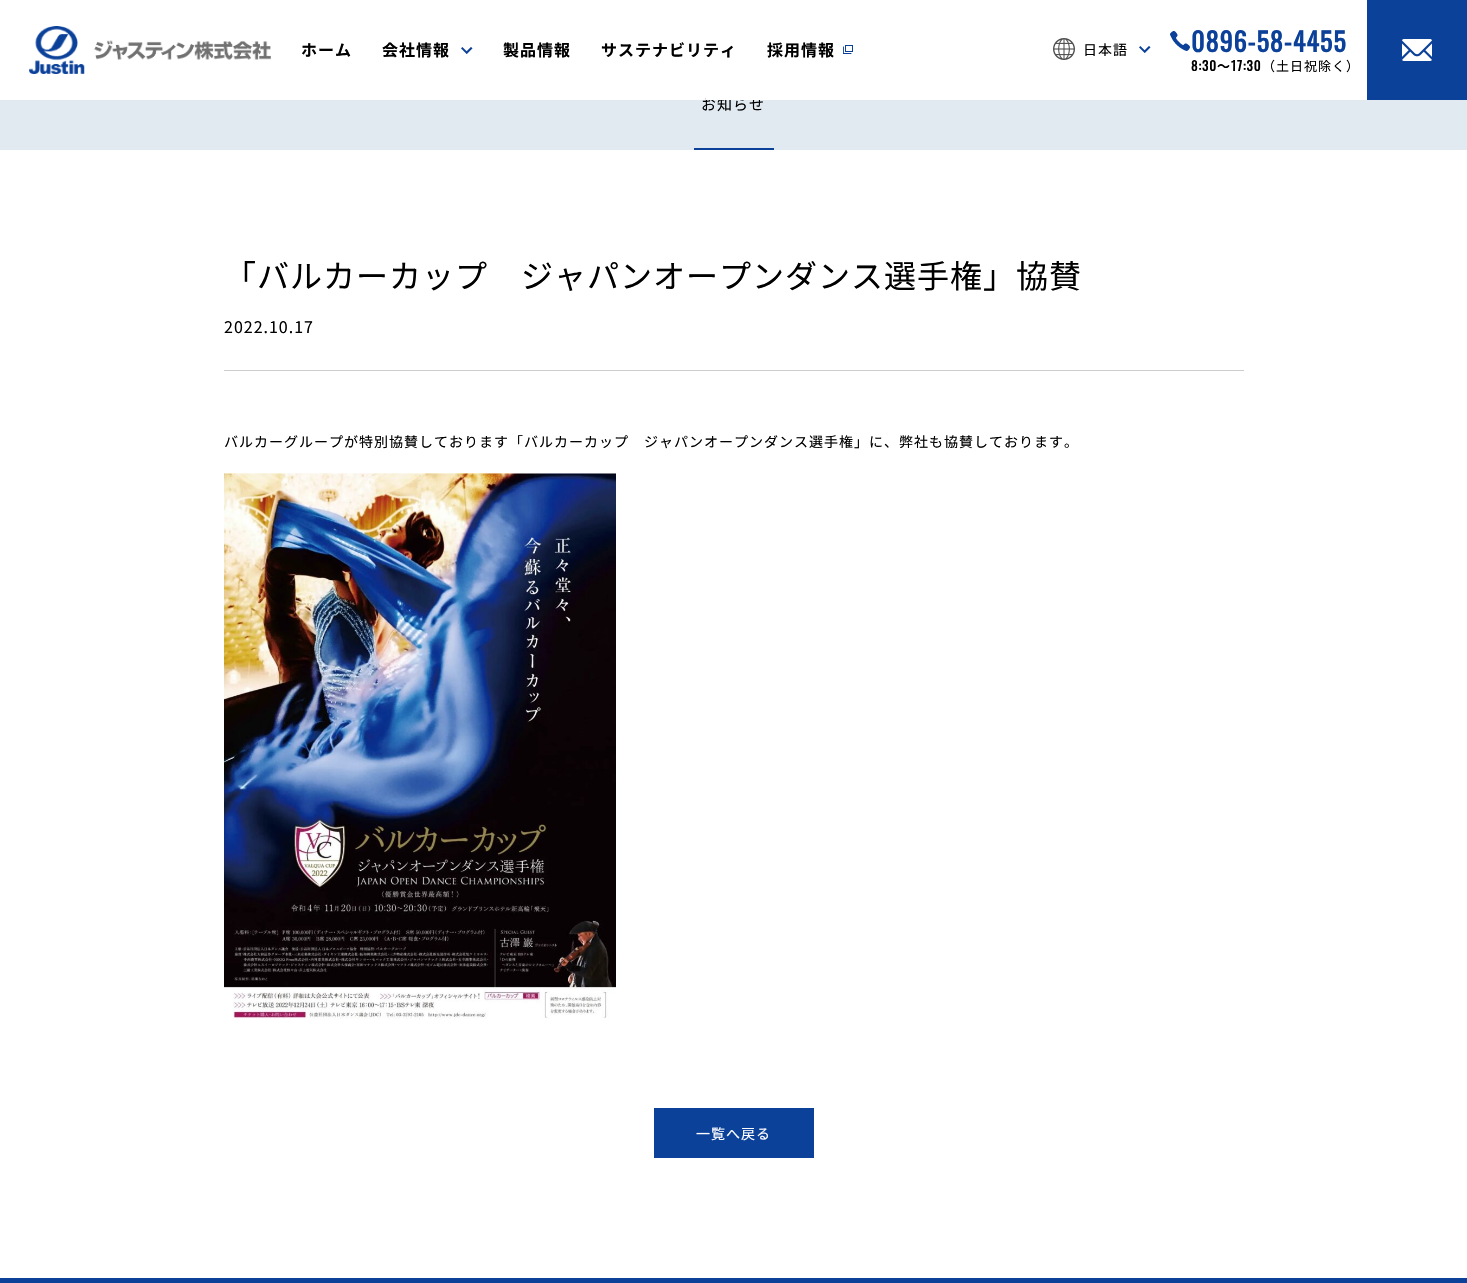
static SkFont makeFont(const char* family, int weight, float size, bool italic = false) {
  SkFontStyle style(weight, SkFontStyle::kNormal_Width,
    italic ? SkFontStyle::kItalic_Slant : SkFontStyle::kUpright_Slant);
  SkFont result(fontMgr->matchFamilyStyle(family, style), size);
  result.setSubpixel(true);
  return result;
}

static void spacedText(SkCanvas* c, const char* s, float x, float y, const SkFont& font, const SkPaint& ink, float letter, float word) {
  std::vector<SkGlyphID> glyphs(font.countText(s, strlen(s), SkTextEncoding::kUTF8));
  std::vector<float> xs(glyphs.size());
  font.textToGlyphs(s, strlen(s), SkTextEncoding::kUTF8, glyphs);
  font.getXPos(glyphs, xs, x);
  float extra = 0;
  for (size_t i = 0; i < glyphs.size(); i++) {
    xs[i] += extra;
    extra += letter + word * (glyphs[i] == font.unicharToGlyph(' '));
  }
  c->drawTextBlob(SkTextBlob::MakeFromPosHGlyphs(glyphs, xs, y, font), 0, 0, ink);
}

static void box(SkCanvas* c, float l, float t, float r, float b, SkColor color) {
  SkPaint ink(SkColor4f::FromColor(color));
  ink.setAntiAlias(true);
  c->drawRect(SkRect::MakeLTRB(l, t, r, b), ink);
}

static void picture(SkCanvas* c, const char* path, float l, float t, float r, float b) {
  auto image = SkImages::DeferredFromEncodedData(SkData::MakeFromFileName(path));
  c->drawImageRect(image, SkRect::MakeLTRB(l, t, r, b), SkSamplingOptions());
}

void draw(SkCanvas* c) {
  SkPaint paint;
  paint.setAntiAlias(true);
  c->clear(0xffffffff);
  box(c, 0, 100, 1467, 150, 0xffe1eaf0);
  SkFont face1 = makeFont("Noto Sans JP", 400, 15);
  paint.setColor(0xff000000);
  spacedText(c, "お知らせ", 701, 110, face1, paint, 1, 0);
  box(c, 706, 97, 761, 100, 0xffffffff);
  picture(c, "img_01.png", 29, 26, 271, 74);
  SkFont face2 = makeFont("Noto Sans JP", 700, 16);
  spacedText(c, "ホーム", 301, 56, face2, paint, 1, 0);
  spacedText(c, "会社情報", 382, 56, face2, paint, 1, 0);
  picture(c, "img_02.png", 461, 47, 473, 54);
  spacedText(c, "製品情報", 503, 56, face2, paint, 1, 0);
  spacedText(c, "サステナビリティ", 601, 56, face2, paint, 1, 0);
  spacedText(c, "採用情報", 767, 56, face2, paint, 1, 0);
  picture(c, "img_03.png", 843, 45, 853, 54);
  picture(c, "img_04.png", 1053, 38, 1075, 60);
  SkFont face3 = makeFont("Noto Sans JP", 400, 14);
  spacedText(c, "日本語", 1083, 55, face3, paint, 1, 0);
  picture(c, "img_02.png", 1139, 46, 1151, 53);
  picture(c, "img_05.png", 1170, 31, 1190, 51);
  SkFont face4 = makeFont("Oswald", 700, 26);
  paint.setColor(0xff0c419a);
  spacedText(c, "0896-58-4455", 1191, 52, face4, paint, 1, 0);
  SkFont face5 = makeFont("Oswald", 700, 13);
  paint.setColor(0xff000000);
  spacedText(c, "8:30", 1191, 71, face5, paint, 1, 0);
  SkFont face6 = makeFont("Noto Sans JP", 700, 13);
  spacedText(c, "〜", 1217, 71, face6, paint, 1, 0);
  spacedText(c, "17:30", 1231, 71, face5, paint, 1, 0);
  SkFont face7 = makeFont("Noto Sans JP", 400, 13);
  spacedText(c, "（土日祝除く）", 1262, 71, face7, paint, 1, 0);
  box(c, 1367, 0, 1467, 100, 0xff0c419a);
  picture(c, "img_06.png", 1402, 39, 1432, 61);
  box(c, 694, 148, 774, 150, 0xff0c419a);
  SkFont face8 = makeFont("Noto Sans JP", 400, 32);
  spacedText(c, "「バルカーカップ　ジャパンオープンダンス選手権」協賛", 224, 288, face8, paint, 1, 0);
  box(c, 224, 370, 1244, 371, 0xffcdcdcd);
  SkFont face9 = makeFont("Noto Sans JP", 400, 16);
  spacedText(c, "2022.10.17", 224, 333, face9, paint, 1, 0);
  spacedText(c, "バルカーグループが特別協賛しております「バルカーカップ　ジャパンオープンダンス選手権」に、弊社も協賛しております。", 224, 447, face3, paint, 1, 0);
  picture(c, "img_07.png", 224, 473, 616, 1020);
  box(c, 654, 1108, 814, 1158, 0xff0c419a);
  paint.setColor(0xffffffff);
  spacedText(c, "一覧へ戻る", 696, 1139, face3, paint, 1, 0);
  box(c, 0, 1278, 1467, 1283, 0xff0c419a);
}
